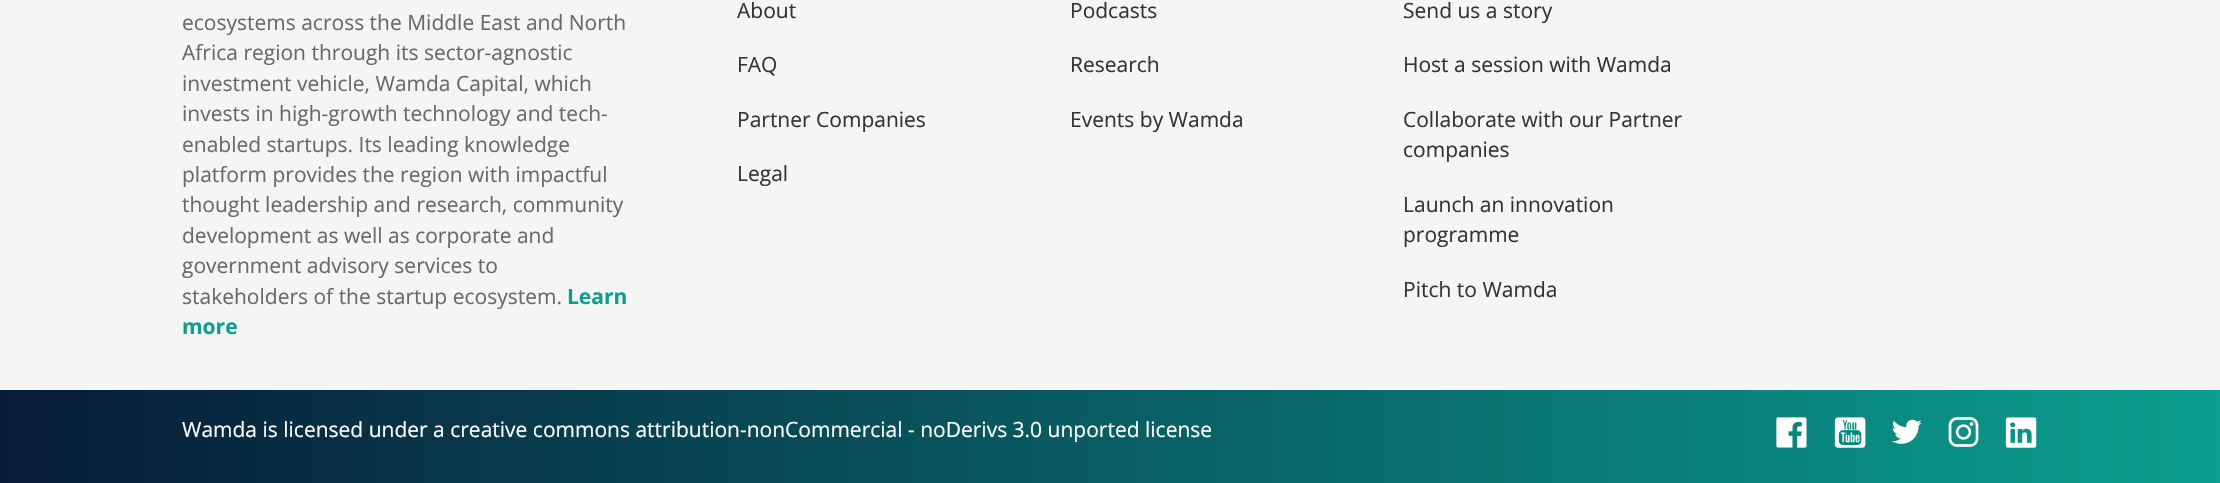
static SkFont makeFont(const char* family, int weight, float size, bool italic = false) {
  SkFontStyle style(weight, SkFontStyle::kNormal_Width,
    italic ? SkFontStyle::kItalic_Slant : SkFontStyle::kUpright_Slant);
  SkFont result(fontMgr->matchFamilyStyle(family, style), size);
  result.setSubpixel(true);
  return result;
}

static void text(SkCanvas* c, const char* s, float x, float y, const SkFont& font, SkColor color) {
  SkPaint ink(SkColor4f::FromColor(color));
  ink.setAntiAlias(true);
  c->drawString(s, x, y, font, ink);
}

static void picture(SkCanvas* c, const char* path, float l, float t, float r, float b) {
  auto image = SkImages::DeferredFromEncodedData(SkData::MakeFromFileName(path));
  c->drawImageRect(image, SkRect::MakeLTRB(l, t, r, b), SkSamplingOptions());
}

void draw(SkCanvas* c) {
  SkPaint paint;
  paint.setAntiAlias(true);
  c->clear(0xfff5f5f5);
  SkFont face1 = makeFont("Open Sans", 400, 21);
  text(c, "ecosystems across the Middle East and North", 182, 30, face1, 0xff676a6c);
  text(c, "Africa region through its sector-agnostic", 182, 60, face1, 0xff676a6c);
  text(c, "investment vehicle, Wamda Capital, which", 182, 91, face1, 0xff676a6c);
  text(c, "invests in high-growth technology and tech-", 182, 121, face1, 0xff676a6c);
  text(c, "enabled startups. Its leading knowledge", 182, 152, face1, 0xff676a6c);
  text(c, "platform provides the region with impactful", 182, 182, face1, 0xff676a6c);
  text(c, "thought leadership and research, community", 182, 212, face1, 0xff676a6c);
  text(c, "development as well as corporate and", 182, 243, face1, 0xff676a6c);
  text(c, "government advisory services to", 182, 273, face1, 0xff676a6c);
  text(c, "stakeholders of the startup ecosystem.", 182, 304, face1, 0xff676a6c);
  SkFont face2 = makeFont("Open Sans", 700, 21);
  text(c, "Learn", 567, 304, face2, 0xff0b9f8e);
  text(c, "more", 182, 334, face2, 0xff0b9f8e);
  text(c, "About", 737, 18, face1, 0xff343434);
  text(c, "FAQ", 737, 72, face1, 0xff343434);
  text(c, "Partner Companies", 737, 127, face1, 0xff343434);
  text(c, "Legal", 737, 181, face1, 0xff343434);
  text(c, "Podcasts", 1070, 18, face1, 0xff343434);
  text(c, "Research", 1070, 72, face1, 0xff343434);
  text(c, "Events by Wamda", 1070, 127, face1, 0xff343434);
  text(c, "Send us a story", 1403, 18, face1, 0xff343434);
  text(c, "Host a session with Wamda", 1403, 72, face1, 0xff343434);
  text(c, "Collaborate with our Partner", 1403, 127, face1, 0xff343434);
  text(c, "companies", 1403, 157, face1, 0xff343434);
  text(c, "Launch an innovation", 1403, 212, face1, 0xff343434);
  text(c, "programme", 1403, 242, face1, 0xff343434);
  text(c, "Pitch to Wamda", 1403, 297, face1, 0xff343434);
  {
    const SkColor colors[] = {0xff071b36, 0xff0b9f8e};
    const float stops[] = {0, 1};
    const SkPoint ends[] = {{0, 437}, {2220, 436}};
    paint.setShader(SkGradientShader::MakeLinear(ends, colors, stops, 2, SkTileMode::kClamp));
    paint.setAlpha(255);
  }
  c->drawRect(SkRect::MakeLTRB(0, 390, 2220, 483), paint);
  text(c, "Wamda is licensed under a creative commons attribution-nonCommercial - noDerivs 3.0 unported license", 182, 437, face1, 0xffffffff);
  picture(c, "img_01.png", 1776, 417, 1807, 448);
  picture(c, "img_02.png", 1834, 417, 1866, 448);
  picture(c, "img_03.png", 1892, 419, 1922, 444);
  picture(c, "img_04.png", 1948, 417, 1979, 447);
  picture(c, "img_05.png", 2005, 417, 2037, 448);
}
